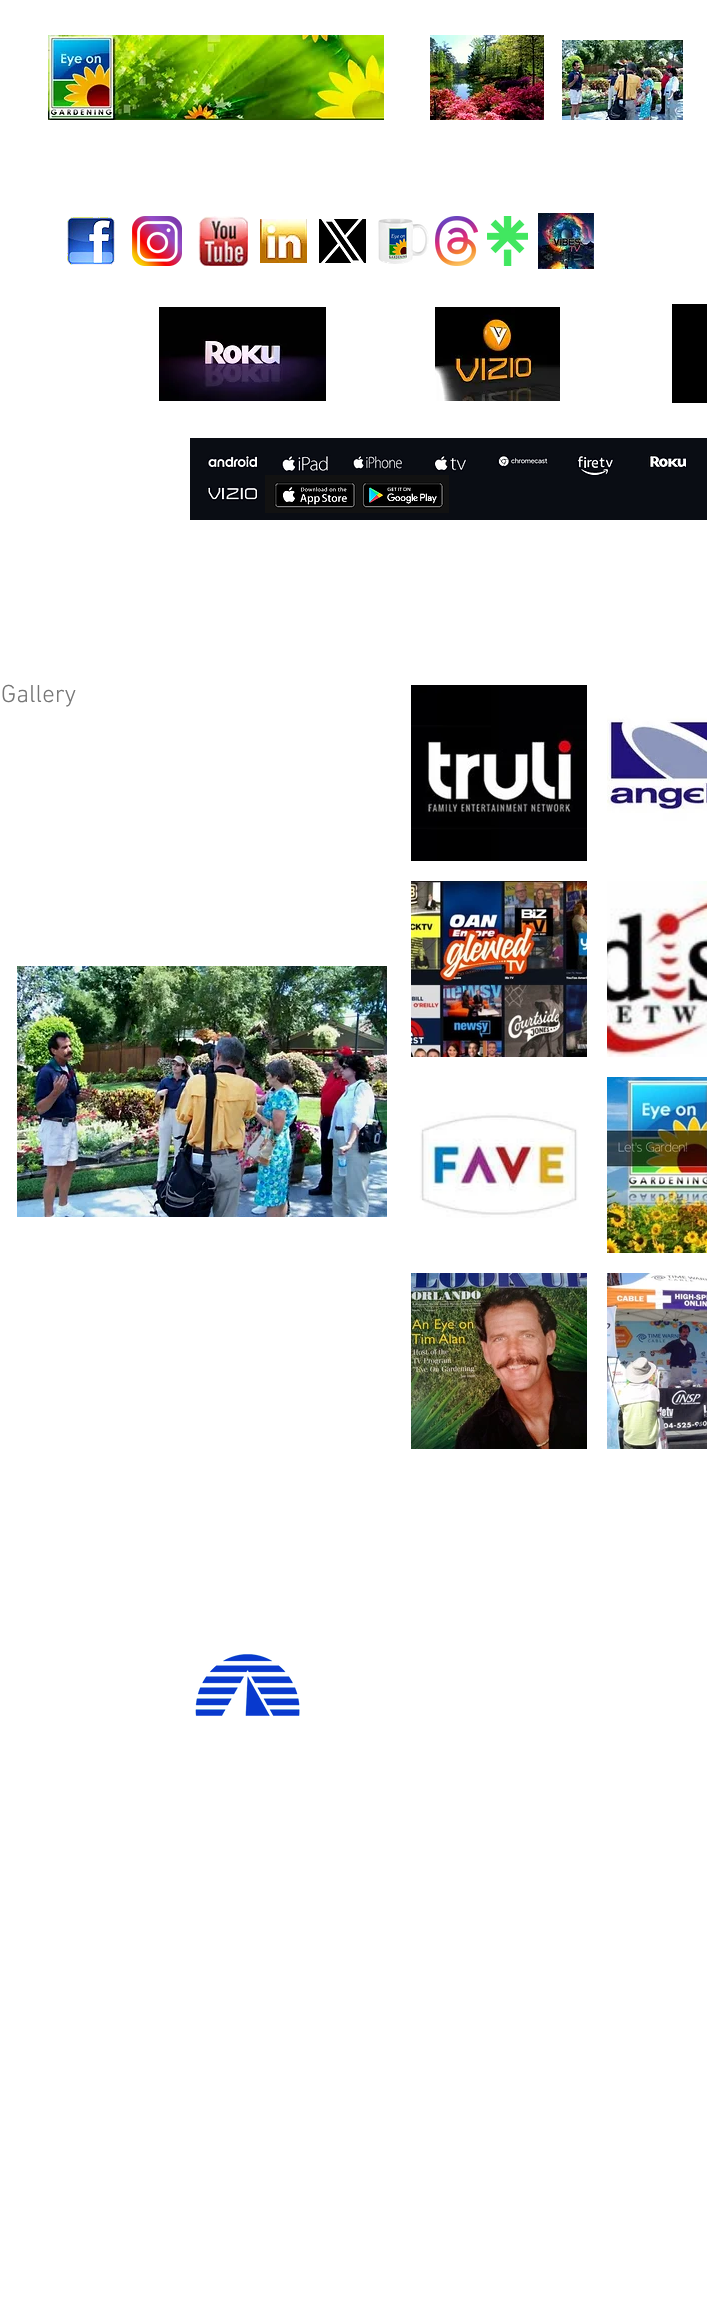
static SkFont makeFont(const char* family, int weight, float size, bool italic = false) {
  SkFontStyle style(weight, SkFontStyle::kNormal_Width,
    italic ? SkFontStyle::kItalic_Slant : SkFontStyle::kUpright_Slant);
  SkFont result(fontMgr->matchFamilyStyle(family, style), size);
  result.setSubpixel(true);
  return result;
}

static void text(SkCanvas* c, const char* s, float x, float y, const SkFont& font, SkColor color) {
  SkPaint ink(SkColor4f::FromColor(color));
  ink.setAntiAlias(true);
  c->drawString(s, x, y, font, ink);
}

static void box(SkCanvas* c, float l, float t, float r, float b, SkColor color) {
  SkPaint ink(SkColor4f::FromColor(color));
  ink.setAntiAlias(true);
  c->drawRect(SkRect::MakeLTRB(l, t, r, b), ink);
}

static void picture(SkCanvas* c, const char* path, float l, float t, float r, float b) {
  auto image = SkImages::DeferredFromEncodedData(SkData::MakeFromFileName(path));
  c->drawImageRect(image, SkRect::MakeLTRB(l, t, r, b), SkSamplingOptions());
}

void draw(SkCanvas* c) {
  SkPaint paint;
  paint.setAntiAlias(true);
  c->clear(0xffffffff);
  picture(c, "img_01.png", 48, 35, 384, 120);
  picture(c, "img_02.png", 430, 35, 544, 120);
  picture(c, "img_03.png", 562, 40, 683, 120);
  picture(c, "img_04.png", 67, 217, 115, 265);
  picture(c, "img_05.png", 132, 216, 182, 266);
  picture(c, "img_06.png", 198, 216, 248, 266);
  picture(c, "img_07.png", 260, 219, 307, 263);
  picture(c, "img_08.png", 319, 219, 366, 263);
  picture(c, "img_09.png", 378, 218, 429, 264);
  picture(c, "img_10.png", 435, 216, 478, 266);
  picture(c, "img_11.png", 487, 216, 528, 266);
  picture(c, "img_12.png", 538, 213, 594, 269);
  picture(c, "img_13.png", 159, 307, 326, 401);
  picture(c, "img_14.png", 435, 307, 560, 401);
  box(c, 672, 304, 707, 403, 0xff000000);
  picture(c, "img_15.png", 190, 438, 707, 520);
  picture(c, "img_16.png", 265, 475, 449, 513);
  SkFont face1 = makeFont("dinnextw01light", 300, 25);
  text(c, "Gallery", 1, 702, face1, 0xff767676);
  picture(c, "img_17.png", 411, 685, 587, 861);
  picture(c, "img_18.png", 607, 685, 707, 861);
  picture(c, "img_19.png", 411, 881, 587, 1057);
  picture(c, "img_20.png", 607, 881, 707, 1057);
  picture(c, "img_21.png", 411, 1077, 587, 1253);
  picture(c, "img_22.png", 607, 1077, 707, 1253);
  picture(c, "img_23.png", 411, 1273, 587, 1449);
  picture(c, "img_24.png", 607, 1273, 707, 1449);
  picture(c, "img_25.png", 17, 966, 387, 1217);
  picture(c, "img_26.png", 195, 1654, 300, 1716);
}
